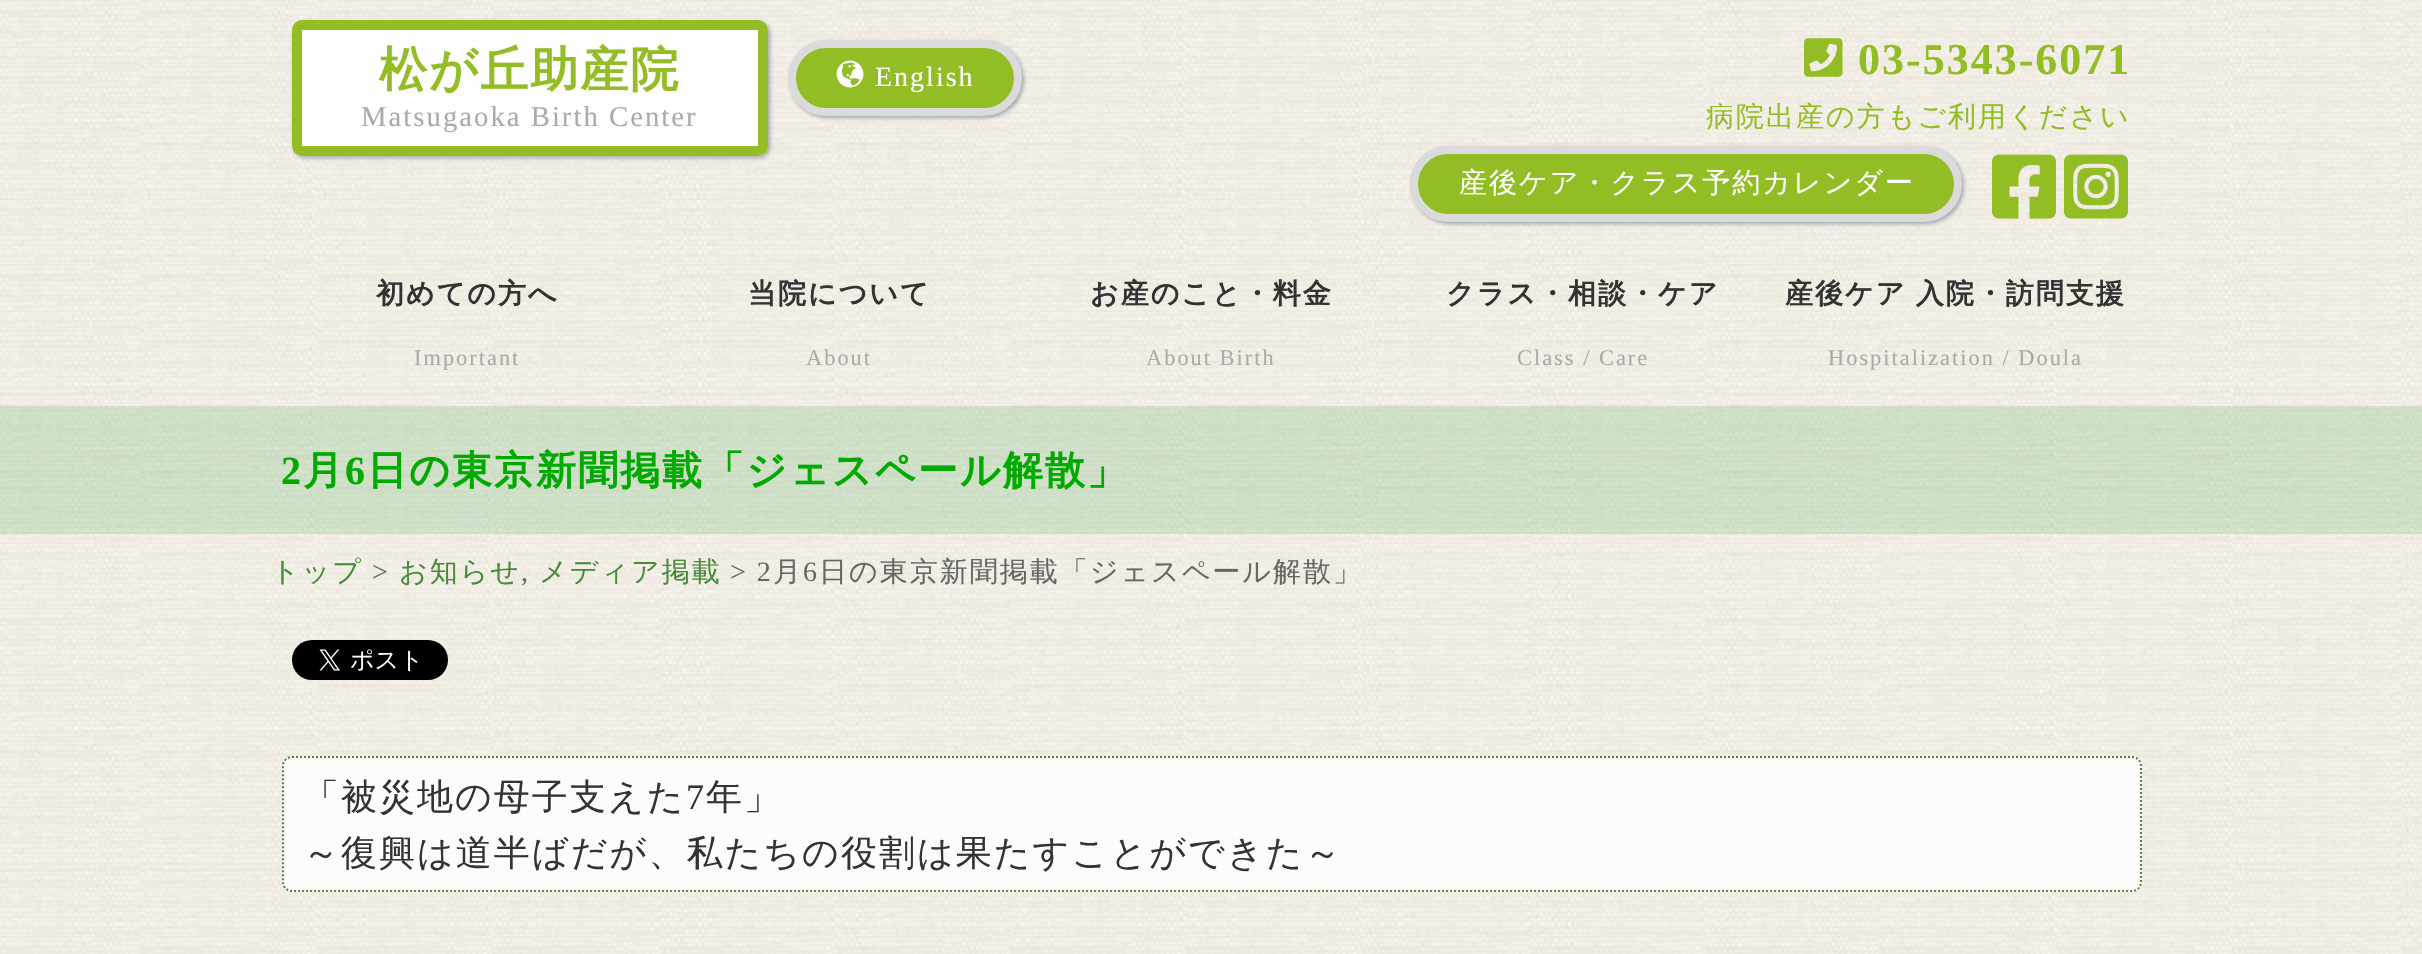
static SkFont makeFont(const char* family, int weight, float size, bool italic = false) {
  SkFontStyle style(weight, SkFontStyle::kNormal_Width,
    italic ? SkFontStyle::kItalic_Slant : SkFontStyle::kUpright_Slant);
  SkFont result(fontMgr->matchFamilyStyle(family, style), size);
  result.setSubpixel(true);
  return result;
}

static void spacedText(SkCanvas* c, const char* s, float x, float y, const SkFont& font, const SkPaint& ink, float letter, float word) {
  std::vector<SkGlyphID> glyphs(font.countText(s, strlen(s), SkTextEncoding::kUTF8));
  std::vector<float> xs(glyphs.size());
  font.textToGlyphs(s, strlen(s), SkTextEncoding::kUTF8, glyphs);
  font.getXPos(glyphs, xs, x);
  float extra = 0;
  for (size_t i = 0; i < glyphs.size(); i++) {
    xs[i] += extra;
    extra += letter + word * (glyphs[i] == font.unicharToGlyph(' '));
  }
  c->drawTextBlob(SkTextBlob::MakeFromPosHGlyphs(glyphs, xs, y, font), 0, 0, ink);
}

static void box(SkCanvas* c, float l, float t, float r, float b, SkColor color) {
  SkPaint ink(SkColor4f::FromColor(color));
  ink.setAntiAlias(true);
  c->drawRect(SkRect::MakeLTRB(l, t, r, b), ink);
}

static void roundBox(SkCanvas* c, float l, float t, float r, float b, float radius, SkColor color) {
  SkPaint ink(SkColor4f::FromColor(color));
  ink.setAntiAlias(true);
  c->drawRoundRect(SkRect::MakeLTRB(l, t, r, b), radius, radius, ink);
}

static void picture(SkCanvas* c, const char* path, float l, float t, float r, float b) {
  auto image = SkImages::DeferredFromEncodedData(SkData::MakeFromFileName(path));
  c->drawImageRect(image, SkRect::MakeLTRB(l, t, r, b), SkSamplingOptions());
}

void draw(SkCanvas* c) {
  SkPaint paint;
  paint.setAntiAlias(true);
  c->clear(0xffffffff);
  picture(c, "img_01.png", 0, 0, 2422, 954);
  c->save();
  c->clipPath(SkPathBuilder(SkPathFillType::kEvenOdd).moveTo(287, 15).lineTo(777, 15).lineTo(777, 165).lineTo(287, 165).close().moveTo(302, 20).lineTo(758, 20).cubicTo(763.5f, 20, 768, 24.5f, 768, 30).lineTo(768, 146).cubicTo(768, 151.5f, 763.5f, 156, 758, 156).lineTo(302, 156).cubicTo(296.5f, 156, 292, 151.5f, 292, 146).lineTo(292, 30).cubicTo(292, 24.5f, 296.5f, 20, 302, 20).close().detach(), true);
  paint.setColor(0x804f5d75);
  paint.setMaskFilter(SkMaskFilter::MakeBlur(kNormal_SkBlurStyle, 2));
  c->drawRoundRect(SkRect::MakeLTRB(294, 22, 770, 158), 10, 10, paint);
  paint.setMaskFilter(nullptr);
  c->restore();
  paint.setColor(0xe6ffffff);
  c->drawRoundRect(SkRect::MakeLTRB(297, 25, 763, 151), 5, 5, paint);
  paint.setStyle(SkPaint::kStroke_Style);
  paint.setStrokeWidth(10);
  paint.setColor(0xff92bd25);
  c->drawRoundRect(SkRect::MakeLTRB(297, 25, 763, 151), 5, 5, paint);
  SkFont face1 = makeFont("WenQuanYi Zen Hei", 700, 48);
  paint.setStyle(SkPaint::kFill_Style);
  spacedText(c, "松が丘助産院", 379, 86, face1, paint, 2, 0);
  SkFont face2 = makeFont("Liberation Serif", 400, 28.75f);
  paint.setColor(0xffaaaaaa);
  spacedText(c, "Matsugaoka Birth Center", 361, 126, face2, paint, 2, 0);
  paint.setColor(0x804f5d75);
  paint.setMaskFilter(SkMaskFilter::MakeBlur(kNormal_SkBlurStyle, 2));
  c->drawRoundRect(SkRect::MakeLTRB(790, 42, 1024, 118), 38, 38, paint);
  paint.setMaskFilter(nullptr);
  paint.setColor(0xff92bd25);
  c->drawRoundRect(SkRect::MakeLTRB(792, 44, 1018, 112), 34, 34, paint);
  paint.setStyle(SkPaint::kStroke_Style);
  paint.setStrokeWidth(8);
  paint.setColor(0xffdbdbdb);
  c->drawRoundRect(SkRect::MakeLTRB(792, 44, 1018, 112), 34, 34, paint);
  picture(c, "img_02.png", 836, 60, 864, 88);
  SkFont face3 = makeFont("Liberation Serif", 400, 28);
  paint.setStyle(SkPaint::kFill_Style);
  paint.setColor(0xffffffff);
  spacedText(c, "English", 875, 86, face3, paint, 2, 0);
  picture(c, "img_03.png", 1804, 38, 1843, 77);
  SkFont face4 = makeFont("Liberation Serif", 700, 44);
  paint.setColor(0xff92bd25);
  spacedText(c, "03-5343-6071", 1858, 74, face4, paint, 2, 0);
  SkFont face5 = makeFont("WenQuanYi Zen Hei", 500, 28);
  spacedText(c, "病院出産の方もご利用ください", 1706, 126, face5, paint, 2, 0);
  paint.setColor(0x804f5d75);
  paint.setMaskFilter(SkMaskFilter::MakeBlur(kNormal_SkBlurStyle, 2));
  c->drawRoundRect(SkRect::MakeLTRB(1412, 148, 1964, 224), 38, 38, paint);
  paint.setMaskFilter(nullptr);
  paint.setColor(0xff92bd25);
  c->drawRoundRect(SkRect::MakeLTRB(1414, 150, 1958, 218), 34, 34, paint);
  paint.setStyle(SkPaint::kStroke_Style);
  paint.setColor(0xffdbdbdb);
  c->drawRoundRect(SkRect::MakeLTRB(1414, 150, 1958, 218), 34, 34, paint);
  paint.setStyle(SkPaint::kFill_Style);
  paint.setColor(0xffffffff);
  spacedText(c, "産後ケア・クラス予約カレンダー", 1459, 192, face5, paint, 2, 0);
  picture(c, "img_04.png", 1992, 154, 2056, 219);
  picture(c, "img_05.png", 2064, 154, 2128, 219);
  SkFont face6 = makeFont("WenQuanYi Zen Hei", 700, 28);
  paint.setColor(0xff333333);
  spacedText(c, "初めての方へ", 376, 303, face6, paint, 2, 0);
  SkFont face7 = makeFont("Liberation Serif", 400, 22.4f);
  paint.setColor(0xffaaaaaa);
  spacedText(c, "Important", 414, 365, face7, paint, 2, 0);
  paint.setColor(0xff333333);
  spacedText(c, "当院について", 748, 303, face6, paint, 2, 0);
  paint.setColor(0xffaaaaaa);
  spacedText(c, "About", 806, 365, face7, paint, 2, 0);
  paint.setColor(0xff333333);
  spacedText(c, "お産のこと・料金", 1090, 303, face6, paint, 2, 0);
  paint.setColor(0xffaaaaaa);
  spacedText(c, "About Birth", 1146, 365, face7, paint, 2, 0);
  paint.setColor(0xff333333);
  spacedText(c, "クラス・相談・ケア", 1446, 303, face6, paint, 2, 0);
  paint.setColor(0xffaaaaaa);
  spacedText(c, "Class / Care", 1517, 365, face7, paint, 2, 0);
  paint.setColor(0xff333333);
  spacedText(c, "産後ケア 入院・訪問支援", 1785, 303, face6, paint, 2, -1);
  paint.setColor(0xffaaaaaa);
  spacedText(c, "Hospitalization / Doula", 1828, 365, face7, paint, 2, 0);
  box(c, 0, 406, 2422, 534, 0x334daa57);
  SkFont face8 = makeFont("Liberation Serif", 700, 40);
  paint.setColor(0xff00aa00);
  spacedText(c, "2", 281, 484, face8, paint, 2, 0);
  SkFont face9 = makeFont("WenQuanYi Zen Hei", 700, 40);
  spacedText(c, "月", 303, 484, face9, paint, 2, 0);
  spacedText(c, "6", 345, 484, face8, paint, 2, 0);
  spacedText(c, "日の東京新聞掲載「ジェスペール解散」", 367, 484, face9, paint, 2, 0);
  paint.setColor(0xff468b38);
  spacedText(c, "トップ", 271, 581, face5, paint, 2, 0);
  paint.setColor(0xff666666);
  spacedText(c, ">", 372, 581, face3, paint, 2, 0);
  paint.setColor(0xff468b38);
  spacedText(c, "お知らせ", 399, 581, face5, paint, 2, 0);
  spacedText(c, "メディア掲載", 539, 581, face5, paint, 2, 0);
  paint.setColor(0xff666666);
  spacedText(c, "> 2", 730, 581, face3, paint, 2, 0);
  spacedText(c, "月", 773, 581, face5, paint, 2, 0);
  spacedText(c, "6", 803, 581, face3, paint, 2, 0);
  spacedText(c, "日の東京新聞掲載「ジェスペール解散」", 819, 581, face5, paint, 2, 0);
  spacedText(c, ",", 521, 581, face3, paint, 2, 0);
  picture(c, "img_06.png", 292, 640, 448, 680);
  roundBox(c, 282, 756, 2142, 892, 10, 0xccffffff);
  paint.setStyle(SkPaint::kStroke_Style);
  paint.setStrokeWidth(2);
  paint.setColor(0xff458638);
  paint.setPathEffect(SkDashPathEffect::Make({{2, 2}}, 0));
  c->drawPath(SkPathBuilder().moveTo(292, 757).lineTo(2132, 757).cubicTo(2137, 757, 2141, 761, 2141, 766).lineTo(2141, 882).cubicTo(2141, 887, 2137, 891, 2132, 891).lineTo(292, 891).cubicTo(287, 891, 283, 887, 283, 882).lineTo(283, 766).cubicTo(283, 761, 287, 757, 292, 757).close().detach(), paint);
  paint.setPathEffect(nullptr);
  SkFont face10 = makeFont("WenQuanYi Zen Hei", 500, 36);
  paint.setStyle(SkPaint::kFill_Style);
  paint.setColor(0xff333333);
  spacedText(c, "「被災地の母子支えた", 303, 809, face10, paint, 2, 0);
  SkFont face11 = makeFont("Liberation Serif", 400, 36);
  spacedText(c, "7", 686, 809, face11, paint, 2, 0);
  spacedText(c, "年」", 706, 809, face10, paint, 2, 0);
  spacedText(c, "～復興は道半ばだが、私たちの役割は果たすことができた～", 303, 865, face10, paint, 2, 0);
}
